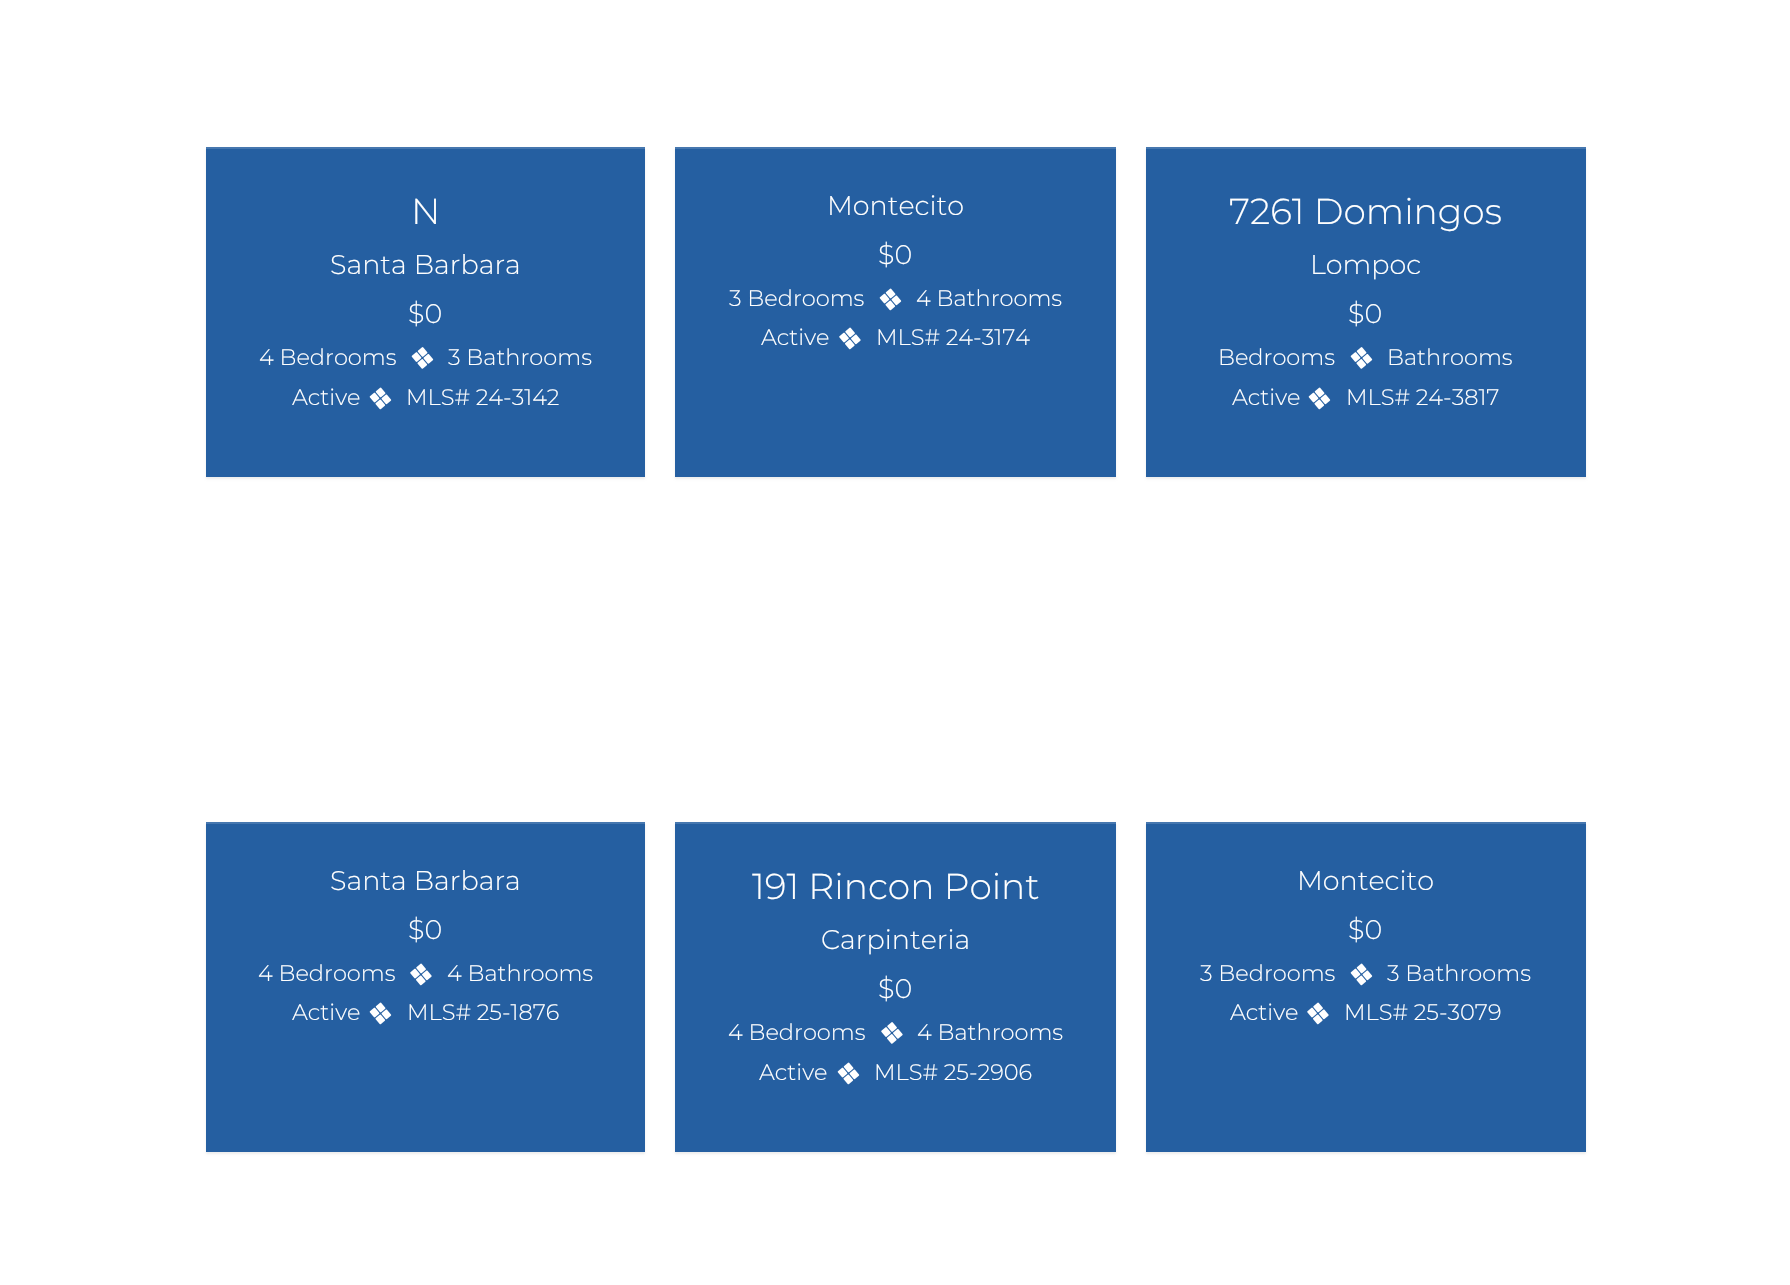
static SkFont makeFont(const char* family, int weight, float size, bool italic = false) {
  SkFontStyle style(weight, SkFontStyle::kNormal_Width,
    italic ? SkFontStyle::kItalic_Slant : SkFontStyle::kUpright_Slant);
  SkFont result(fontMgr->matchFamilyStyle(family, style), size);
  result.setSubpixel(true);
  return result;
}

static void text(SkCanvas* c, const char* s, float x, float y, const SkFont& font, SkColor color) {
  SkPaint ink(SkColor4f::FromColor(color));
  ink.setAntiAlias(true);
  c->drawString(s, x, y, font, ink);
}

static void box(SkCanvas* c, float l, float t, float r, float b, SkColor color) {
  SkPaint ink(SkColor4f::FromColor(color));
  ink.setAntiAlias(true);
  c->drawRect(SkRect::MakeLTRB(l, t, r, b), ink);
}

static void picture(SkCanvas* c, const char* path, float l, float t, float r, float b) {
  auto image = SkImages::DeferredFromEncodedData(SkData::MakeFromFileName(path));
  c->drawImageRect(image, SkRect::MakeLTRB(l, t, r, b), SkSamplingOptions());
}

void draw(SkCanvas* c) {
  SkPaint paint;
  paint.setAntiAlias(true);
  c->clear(0xffffffff);
  paint.setColor(0x12000000);
  paint.setMaskFilter(SkMaskFilter::MakeBlur(kNormal_SkBlurStyle, 1));
  c->drawRect(SkRect::MakeLTRB(206, 149, 645, 479), paint);
  paint.setMaskFilter(nullptr);
  box(c, 206, 149, 645, 477, 0xff255fa1);
  box(c, 206, 147, 645, 149, 0xff4677af);
  SkFont face1 = makeFont("Montserrat", 300, 36);
  text(c, "N", 411, 224, face1, 0xffffffff);
  SkFont face2 = makeFont("Montserrat", 300, 27);
  text(c, "Santa Barbara", 330, 274, face2, 0xffffffff);
  text(c, "$0", 408, 323, face2, 0xffffffff);
  SkFont face3 = makeFont("Montserrat", 300, 22.5f);
  text(c, "4 Bedrooms", 259, 365, face3, 0xffffffff);
  picture(c, "img_01.png", 411, 347, 434, 369);
  text(c, "3 Bathrooms", 448, 365, face3, 0xffffffff);
  text(c, "Active", 292, 405, face3, 0xffffffff);
  picture(c, "img_02.png", 369, 387, 392, 410);
  text(c, "MLS# 24-3142", 406, 405, face3, 0xffffffff);
  paint.setMaskFilter(SkMaskFilter::MakeBlur(kNormal_SkBlurStyle, 1));
  c->drawRect(SkRect::MakeLTRB(675, 149, 1116, 479), paint);
  paint.setMaskFilter(nullptr);
  box(c, 675, 149, 1116, 477, 0xff255fa1);
  box(c, 675, 147, 1116, 149, 0xff4677af);
  text(c, "Montecito", 827, 215, face2, 0xffffffff);
  text(c, "$0", 878, 264, face2, 0xffffffff);
  text(c, "3 Bedrooms", 729, 306, face3, 0xffffffff);
  picture(c, "img_02.png", 879, 288, 902, 311);
  text(c, "4 Bathrooms", 916, 306, face3, 0xffffffff);
  text(c, "Active", 761, 345, face3, 0xffffffff);
  picture(c, "img_03.png", 839, 327, 861, 350);
  text(c, "MLS# 24-3174", 876, 345, face3, 0xffffffff);
  paint.setMaskFilter(SkMaskFilter::MakeBlur(kNormal_SkBlurStyle, 1));
  c->drawRect(SkRect::MakeLTRB(1146, 149, 1586, 479), paint);
  paint.setMaskFilter(nullptr);
  box(c, 1146, 149, 1586, 477, 0xff255fa1);
  box(c, 1146, 147, 1586, 149, 0xff4677af);
  text(c, "7261 Domingos", 1229, 224, face1, 0xffffffff);
  text(c, "Lompoc", 1310, 274, face2, 0xffffffff);
  text(c, "$0", 1348, 323, face2, 0xffffffff);
  text(c, "Bedrooms", 1218, 365, face3, 0xffffffff);
  picture(c, "img_01.png", 1350, 347, 1373, 369);
  text(c, "Bathrooms", 1387, 365, face3, 0xffffffff);
  text(c, "Active", 1232, 405, face3, 0xffffffff);
  picture(c, "img_02.png", 1308, 387, 1331, 410);
  text(c, "MLS# 24-3817", 1346, 405, face3, 0xffffffff);
  paint.setMaskFilter(SkMaskFilter::MakeBlur(kNormal_SkBlurStyle, 1));
  c->drawRect(SkRect::MakeLTRB(206, 824, 645, 1154), paint);
  paint.setMaskFilter(nullptr);
  box(c, 206, 824, 645, 1152, 0xff255fa1);
  box(c, 206, 822, 645, 824, 0xff4677af);
  text(c, "Santa Barbara", 330, 890, face2, 0xffffffff);
  text(c, "$0", 408, 939, face2, 0xffffffff);
  text(c, "4 Bedrooms", 258, 981, face3, 0xffffffff);
  picture(c, "img_03.png", 410, 963, 432, 986);
  text(c, "4 Bathrooms", 447, 981, face3, 0xffffffff);
  text(c, "Active", 292, 1020, face3, 0xffffffff);
  picture(c, "img_02.png", 369, 1002, 392, 1025);
  text(c, "MLS# 25-1876", 407, 1020, face3, 0xffffffff);
  paint.setMaskFilter(SkMaskFilter::MakeBlur(kNormal_SkBlurStyle, 1));
  c->drawRect(SkRect::MakeLTRB(675, 824, 1116, 1154), paint);
  paint.setMaskFilter(nullptr);
  box(c, 675, 824, 1116, 1152, 0xff255fa1);
  box(c, 675, 822, 1116, 824, 0xff4677af);
  text(c, "191 Rincon Point", 752, 899, face1, 0xffffffff);
  text(c, "Carpinteria", 821, 949, face2, 0xffffffff);
  text(c, "$0", 878, 998, face2, 0xffffffff);
  text(c, "4 Bedrooms", 728, 1040, face3, 0xffffffff);
  picture(c, "img_04.png", 881, 1022, 903, 1044);
  text(c, "4 Bathrooms", 917, 1040, face3, 0xffffffff);
  text(c, "Active", 759, 1080, face3, 0xffffffff);
  picture(c, "img_02.png", 837, 1062, 860, 1085);
  text(c, "MLS# 25-2906", 874, 1080, face3, 0xffffffff);
  paint.setMaskFilter(SkMaskFilter::MakeBlur(kNormal_SkBlurStyle, 1));
  c->drawRect(SkRect::MakeLTRB(1146, 824, 1586, 1154), paint);
  paint.setMaskFilter(nullptr);
  box(c, 1146, 824, 1586, 1152, 0xff255fa1);
  box(c, 1146, 822, 1586, 824, 0xff4677af);
  text(c, "Montecito", 1297, 890, face2, 0xffffffff);
  text(c, "$0", 1348, 939, face2, 0xffffffff);
  text(c, "3 Bedrooms", 1200, 981, face3, 0xffffffff);
  picture(c, "img_02.png", 1350, 963, 1373, 986);
  text(c, "3 Bathrooms", 1387, 981, face3, 0xffffffff);
  text(c, "Active", 1230, 1020, face3, 0xffffffff);
  picture(c, "img_03.png", 1307, 1002, 1329, 1025);
  text(c, "MLS# 25-3079", 1344, 1020, face3, 0xffffffff);
}
